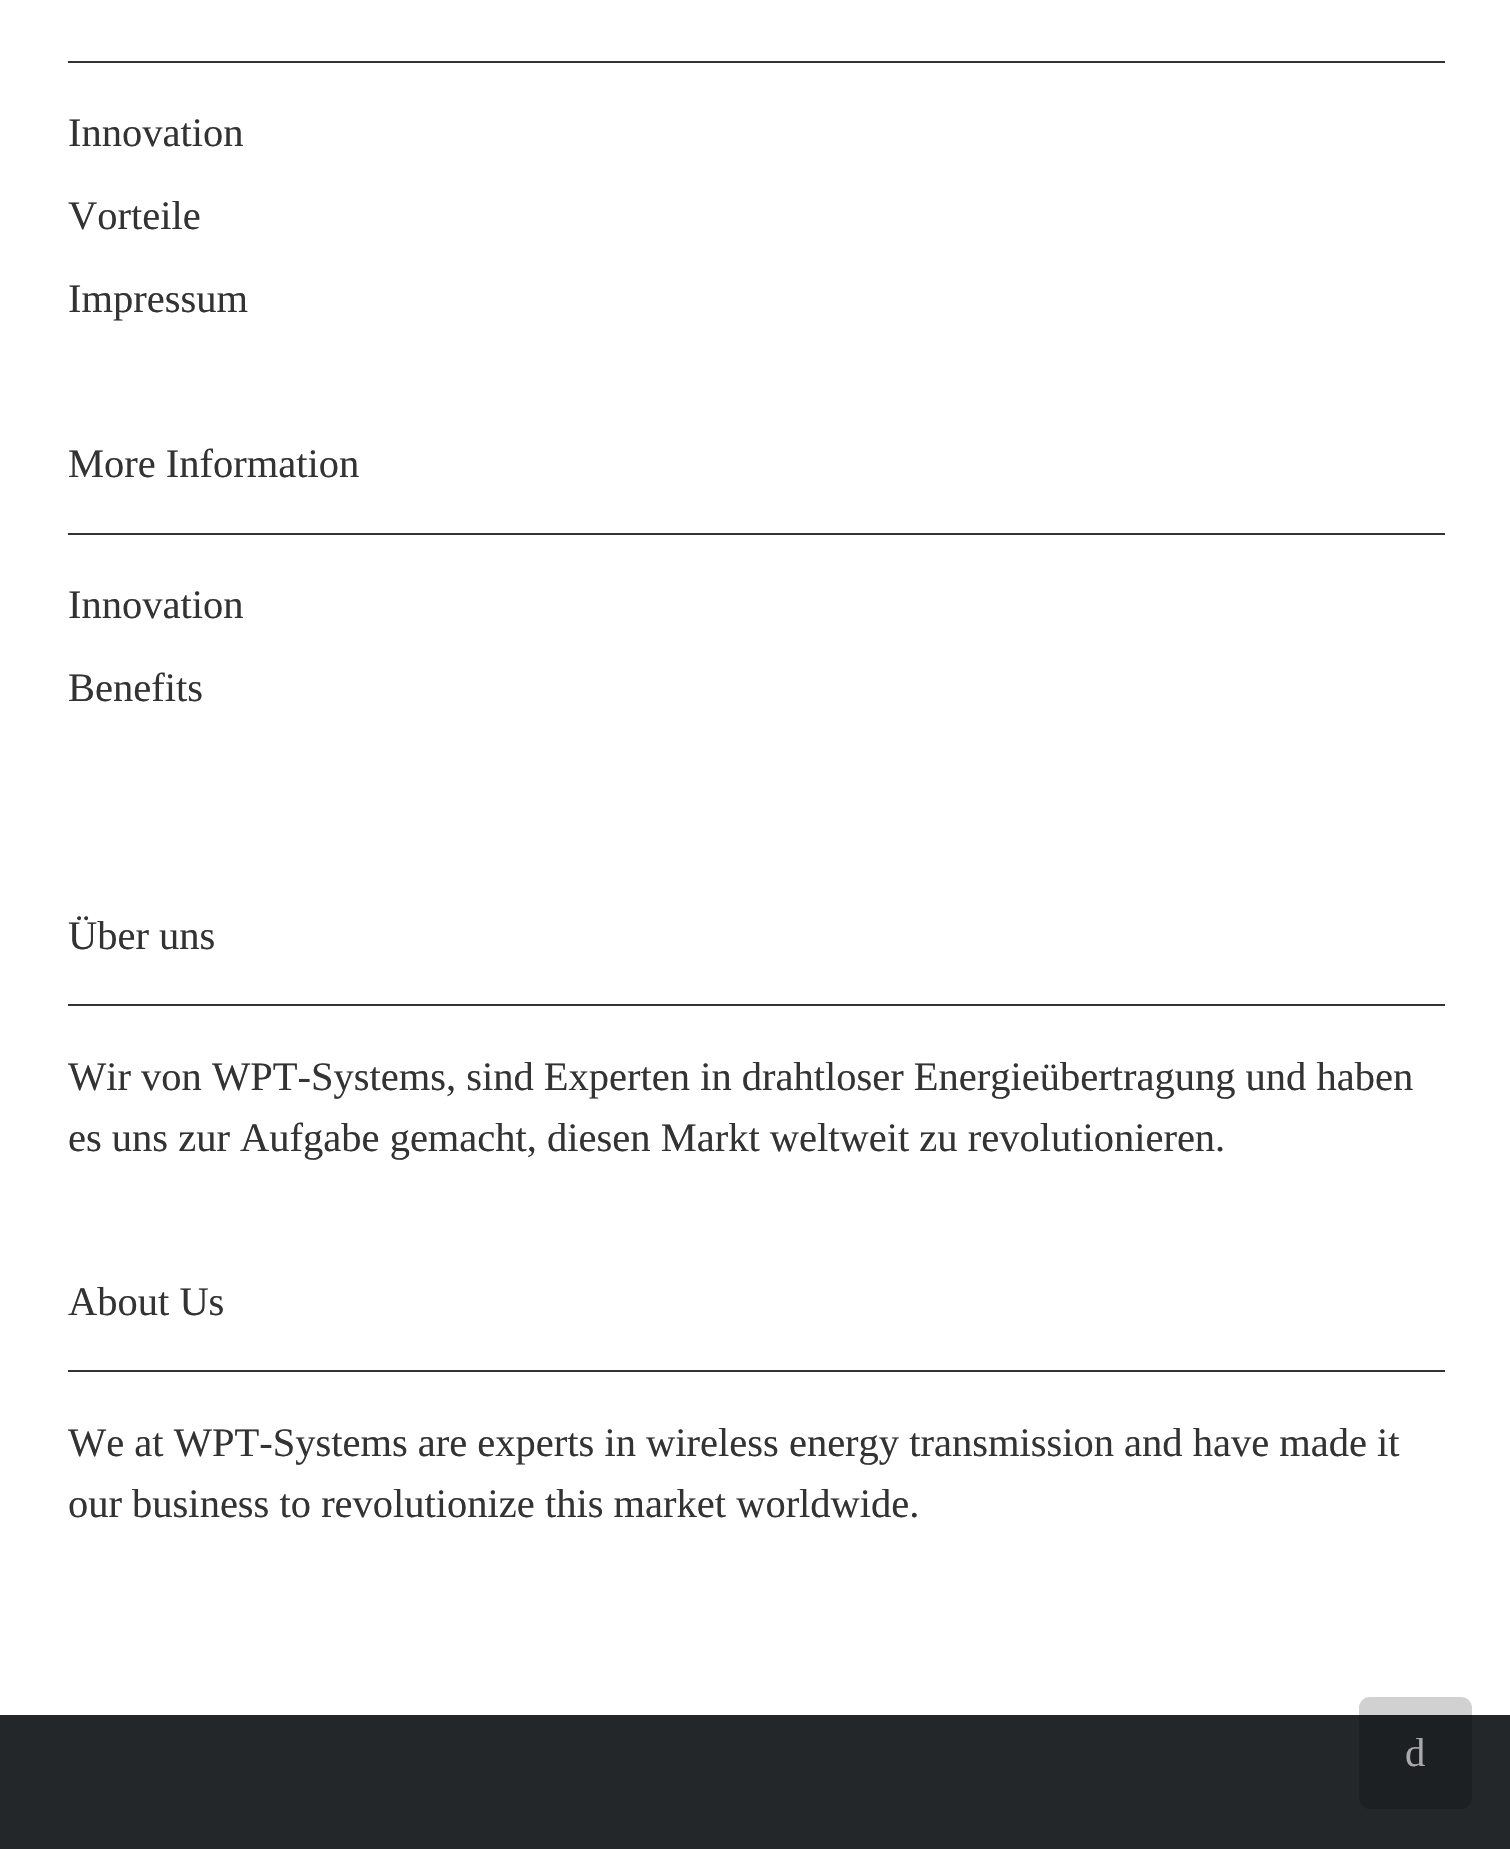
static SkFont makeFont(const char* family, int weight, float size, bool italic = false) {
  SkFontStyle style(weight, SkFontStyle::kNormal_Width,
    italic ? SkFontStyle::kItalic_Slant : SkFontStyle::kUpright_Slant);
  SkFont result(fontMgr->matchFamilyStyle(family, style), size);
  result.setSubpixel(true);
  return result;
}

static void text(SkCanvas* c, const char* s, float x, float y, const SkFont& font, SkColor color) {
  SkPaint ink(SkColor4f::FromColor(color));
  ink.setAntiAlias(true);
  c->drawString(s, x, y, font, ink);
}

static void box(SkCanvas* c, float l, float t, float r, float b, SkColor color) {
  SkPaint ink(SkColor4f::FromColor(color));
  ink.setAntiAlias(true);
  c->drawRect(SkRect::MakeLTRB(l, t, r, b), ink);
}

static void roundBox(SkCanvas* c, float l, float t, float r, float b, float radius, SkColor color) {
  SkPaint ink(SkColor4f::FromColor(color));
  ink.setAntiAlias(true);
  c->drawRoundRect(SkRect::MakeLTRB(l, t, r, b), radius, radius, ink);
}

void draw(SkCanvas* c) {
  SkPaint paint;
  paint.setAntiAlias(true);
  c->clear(0xffffffff);
  box(c, 68, 61, 1445, 63, 0xff333333);
  SkFont face1 = makeFont("Liberation Serif", 400, 40.5f);
  text(c, "Innovation", 68, 146, face1, 0xff333333);
  text(c, "Vorteile", 68, 229, face1, 0xff333333);
  text(c, "Impressum", 68, 312, face1, 0xff333333);
  box(c, 68, 533, 1445, 535, 0xff333333);
  text(c, "More Information", 68, 477, face1, 0xff333333);
  text(c, "Innovation", 68, 618, face1, 0xff333333);
  text(c, "Benefits", 68, 701, face1, 0xff333333);
  box(c, 68, 1004, 1445, 1006, 0xff333333);
  text(c, "Über uns", 68, 949, face1, 0xff333333);
  text(c, "Wir von WPT-Systems, sind Experten in drahtloser Energieübertragung und haben", 68, 1090, face1, 0xff333333);
  text(c, "es uns zur Aufgabe gemacht, diesen Markt weltweit zu revolutionieren.", 68, 1151, face1, 0xff333333);
  box(c, 68, 1370, 1445, 1372, 0xff333333);
  text(c, "About Us", 68, 1315, face1, 0xff333333);
  text(c, "We at WPT-Systems are experts in wireless energy transmission and have made it", 68, 1456, face1, 0xff333333);
  text(c, "our business to revolutionize this market worldwide.", 68, 1517, face1, 0xff333333);
  box(c, 0, 1715, 1510, 1849, 0xff23272a);
  roundBox(c, 1359, 1697, 1472, 1809, 11, 0x2e000000);
  text(c, "d", 1405, 1766, face1, 0xffa7a9aa);
}
